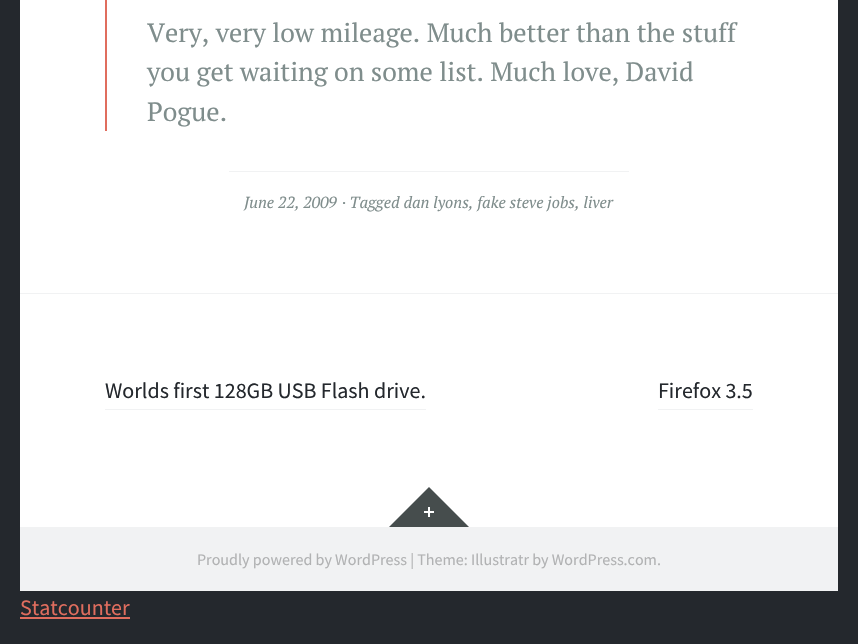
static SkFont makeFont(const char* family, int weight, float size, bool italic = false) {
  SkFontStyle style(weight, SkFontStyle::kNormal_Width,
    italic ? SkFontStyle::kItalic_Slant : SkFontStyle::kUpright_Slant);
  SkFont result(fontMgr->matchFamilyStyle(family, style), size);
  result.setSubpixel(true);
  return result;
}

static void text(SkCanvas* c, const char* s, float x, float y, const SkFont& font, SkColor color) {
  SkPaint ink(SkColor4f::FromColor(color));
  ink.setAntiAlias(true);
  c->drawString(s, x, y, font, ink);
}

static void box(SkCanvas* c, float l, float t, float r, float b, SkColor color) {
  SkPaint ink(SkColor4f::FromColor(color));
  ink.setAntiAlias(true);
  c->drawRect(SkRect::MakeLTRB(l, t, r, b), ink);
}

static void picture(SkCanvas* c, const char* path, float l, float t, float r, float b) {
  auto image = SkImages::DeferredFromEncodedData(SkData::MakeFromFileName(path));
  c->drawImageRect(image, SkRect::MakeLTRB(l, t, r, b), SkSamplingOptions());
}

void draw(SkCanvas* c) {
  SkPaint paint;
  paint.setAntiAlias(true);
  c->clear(0xff24282d);
  box(c, 20, 0, 838, 527, 0xffffffff);
  box(c, 105, 0, 107, 131, 0xffe06d5e);
  SkFont face1 = makeFont("PT Serif", 400, 26.4f);
  text(c, "Very, very low mileage. Much better than the stuff", 147, 42, face1, 0xff7f8d8c);
  text(c, "you get waiting on some list. Much love, David", 147, 81, face1, 0xff7f8d8c);
  text(c, "Pogue.", 147, 121, face1, 0xff7f8d8c);
  box(c, 229, 171, 629, 172, 0xfff1f2f3);
  SkFont face2 = makeFont("PT Serif", 400, 16.05f, true);
  text(c, "June 22, 2009", 244, 208, face2, 0xff7f8d8c);
  text(c, "· Tagged dan lyons, fake steve jobs, liver", 342, 208, face2, 0xff7f8d8c);
  box(c, 20, 293, 838, 294, 0xfff1f2f3);
  SkFont face3 = makeFont("Source Sans Pro", 400, 22);
  text(c, "Worlds first 128GB USB Flash drive.", 105, 398, face3, 0xff24282d);
  box(c, 105, 409, 426, 410, 0xfff1f2f3);
  text(c, "Firefox 3.5", 658, 398, face3, 0xff24282d);
  box(c, 658, 409, 753, 410, 0xfff1f2f3);
  paint.setColor(0xff464d4d);
  c->drawPath(SkPathBuilder().moveTo(469, 527).lineTo(389, 527).lineTo(429, 487).close().detach(), paint);
  picture(c, "img_01.png", 424, 507, 434, 517);
  box(c, 20, 527, 838, 591, 0xfff1f2f3);
  SkFont face4 = makeFont("Source Sans Pro", 400, 16.05f);
  text(c, "Proudly powered by WordPress | Theme: Illustratr by WordPress.com.", 197, 565, face4, 0xffb1b2b3);
  text(c, "Statcounter", 20, 615, face3, 0xffe06d5e);
  box(c, 20, 617, 130, 619, 0xffe06d5e);
}
